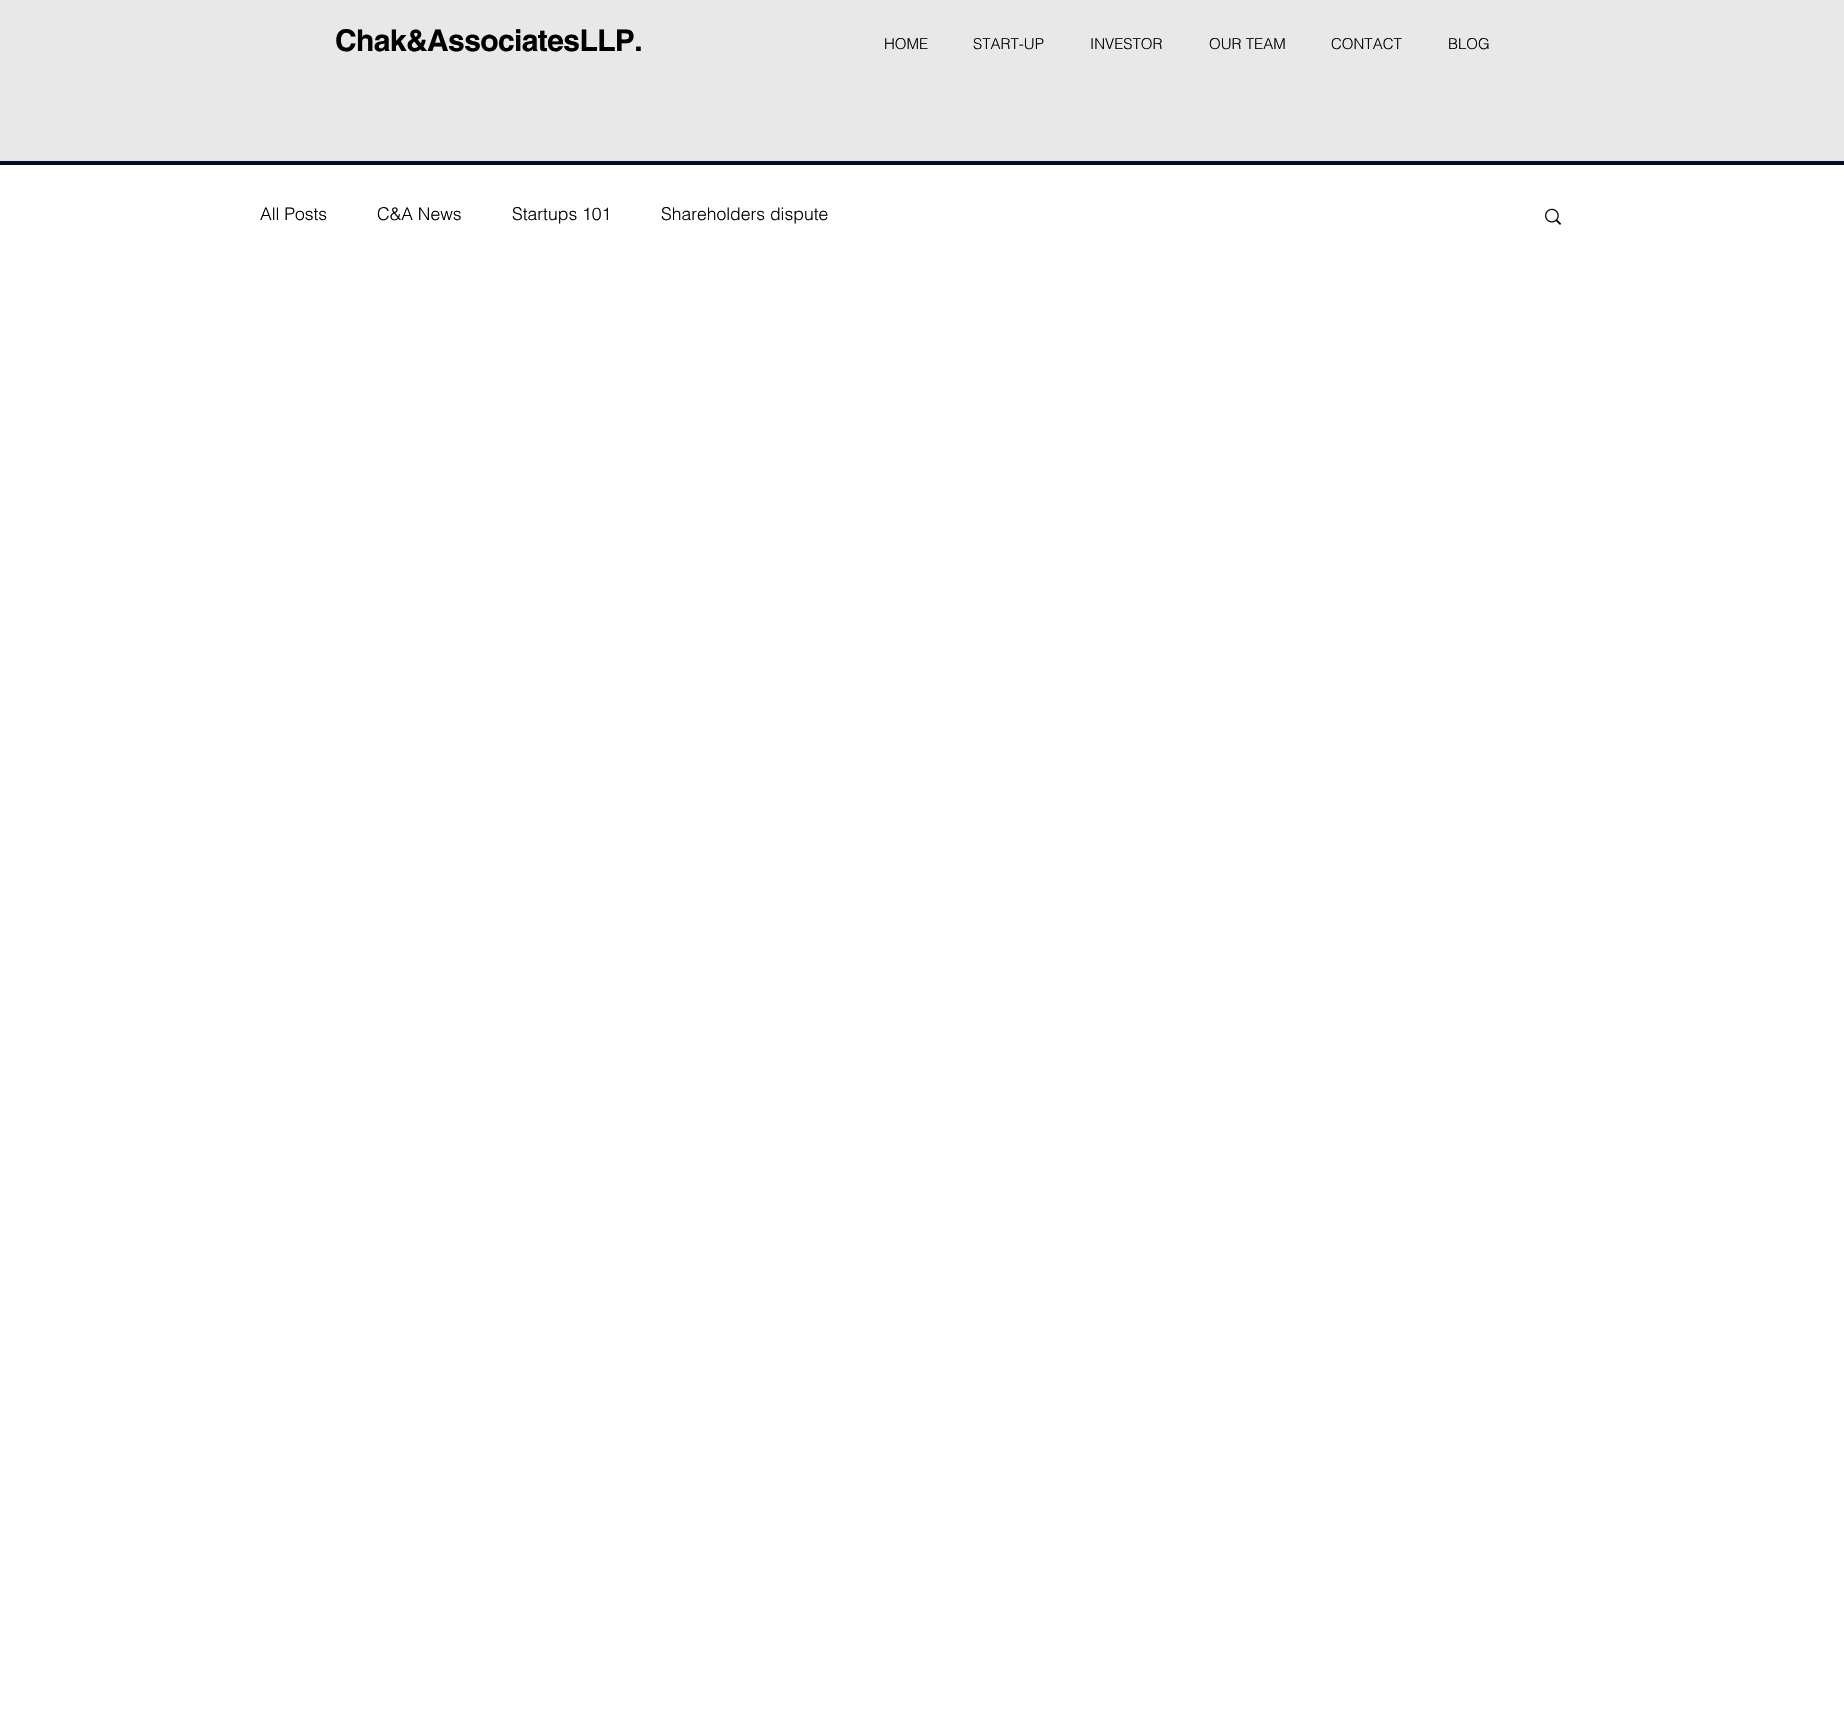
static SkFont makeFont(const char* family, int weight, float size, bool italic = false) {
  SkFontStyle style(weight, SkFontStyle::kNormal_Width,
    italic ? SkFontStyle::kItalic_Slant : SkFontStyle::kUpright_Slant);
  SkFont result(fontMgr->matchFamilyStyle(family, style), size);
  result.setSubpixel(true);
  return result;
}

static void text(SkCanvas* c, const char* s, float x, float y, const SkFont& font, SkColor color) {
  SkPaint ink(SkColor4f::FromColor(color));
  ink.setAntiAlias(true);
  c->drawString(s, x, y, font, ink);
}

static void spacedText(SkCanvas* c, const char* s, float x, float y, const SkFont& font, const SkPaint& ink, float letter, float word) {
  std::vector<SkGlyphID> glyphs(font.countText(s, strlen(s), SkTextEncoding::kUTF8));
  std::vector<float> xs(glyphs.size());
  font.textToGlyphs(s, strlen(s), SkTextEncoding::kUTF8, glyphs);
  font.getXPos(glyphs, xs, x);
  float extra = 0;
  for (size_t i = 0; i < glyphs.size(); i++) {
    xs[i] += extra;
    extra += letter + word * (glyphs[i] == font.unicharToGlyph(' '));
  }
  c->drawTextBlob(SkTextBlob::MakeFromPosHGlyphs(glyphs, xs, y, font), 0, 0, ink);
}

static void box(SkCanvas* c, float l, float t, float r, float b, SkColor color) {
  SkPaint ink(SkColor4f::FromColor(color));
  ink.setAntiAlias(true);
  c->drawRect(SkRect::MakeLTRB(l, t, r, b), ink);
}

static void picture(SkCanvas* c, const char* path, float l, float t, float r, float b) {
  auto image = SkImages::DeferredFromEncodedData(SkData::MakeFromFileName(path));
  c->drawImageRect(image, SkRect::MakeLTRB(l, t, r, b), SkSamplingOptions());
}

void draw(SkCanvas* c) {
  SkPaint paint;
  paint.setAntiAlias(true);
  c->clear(0xffffffff);
  box(c, 0, 0, 1844, 161, 0xffe8e8e8);
  box(c, 0, 161, 1844, 165, 0xff060e25);
  SkFont face1 = makeFont("helvetica", 700, 30);
  paint.setColor(0xff000000);
  spacedText(c, "Chak&AssociatesLLP.", 335, 51, face1, paint, -0.6f, 0);
  SkFont face2 = makeFont("helvetica", 300, 15);
  text(c, "HOME", 884, 49, face2, 0xff000000);
  text(c, "START-UP", 973, 49, face2, 0xff000000);
  text(c, "INVESTOR", 1090, 49, face2, 0xff000000);
  text(c, "OUR TEAM", 1209, 49, face2, 0xff000000);
  text(c, "CONTACT", 1331, 49, face2, 0xff000000);
  text(c, "BLOG", 1448, 49, face2, 0xff000000);
  SkFont face3 = makeFont("helvetica", 300, 17.5f);
  text(c, "All Posts", 260, 220, face3, 0xff000000);
  text(c, "C&A News", 377, 220, face3, 0xff000000);
  text(c, "Startups 101", 512, 220, face3, 0xff000000);
  text(c, "Shareholders dispute", 661, 220, face3, 0xff000000);
  picture(c, "img_01.png", 1545, 208, 1562, 225);
}
